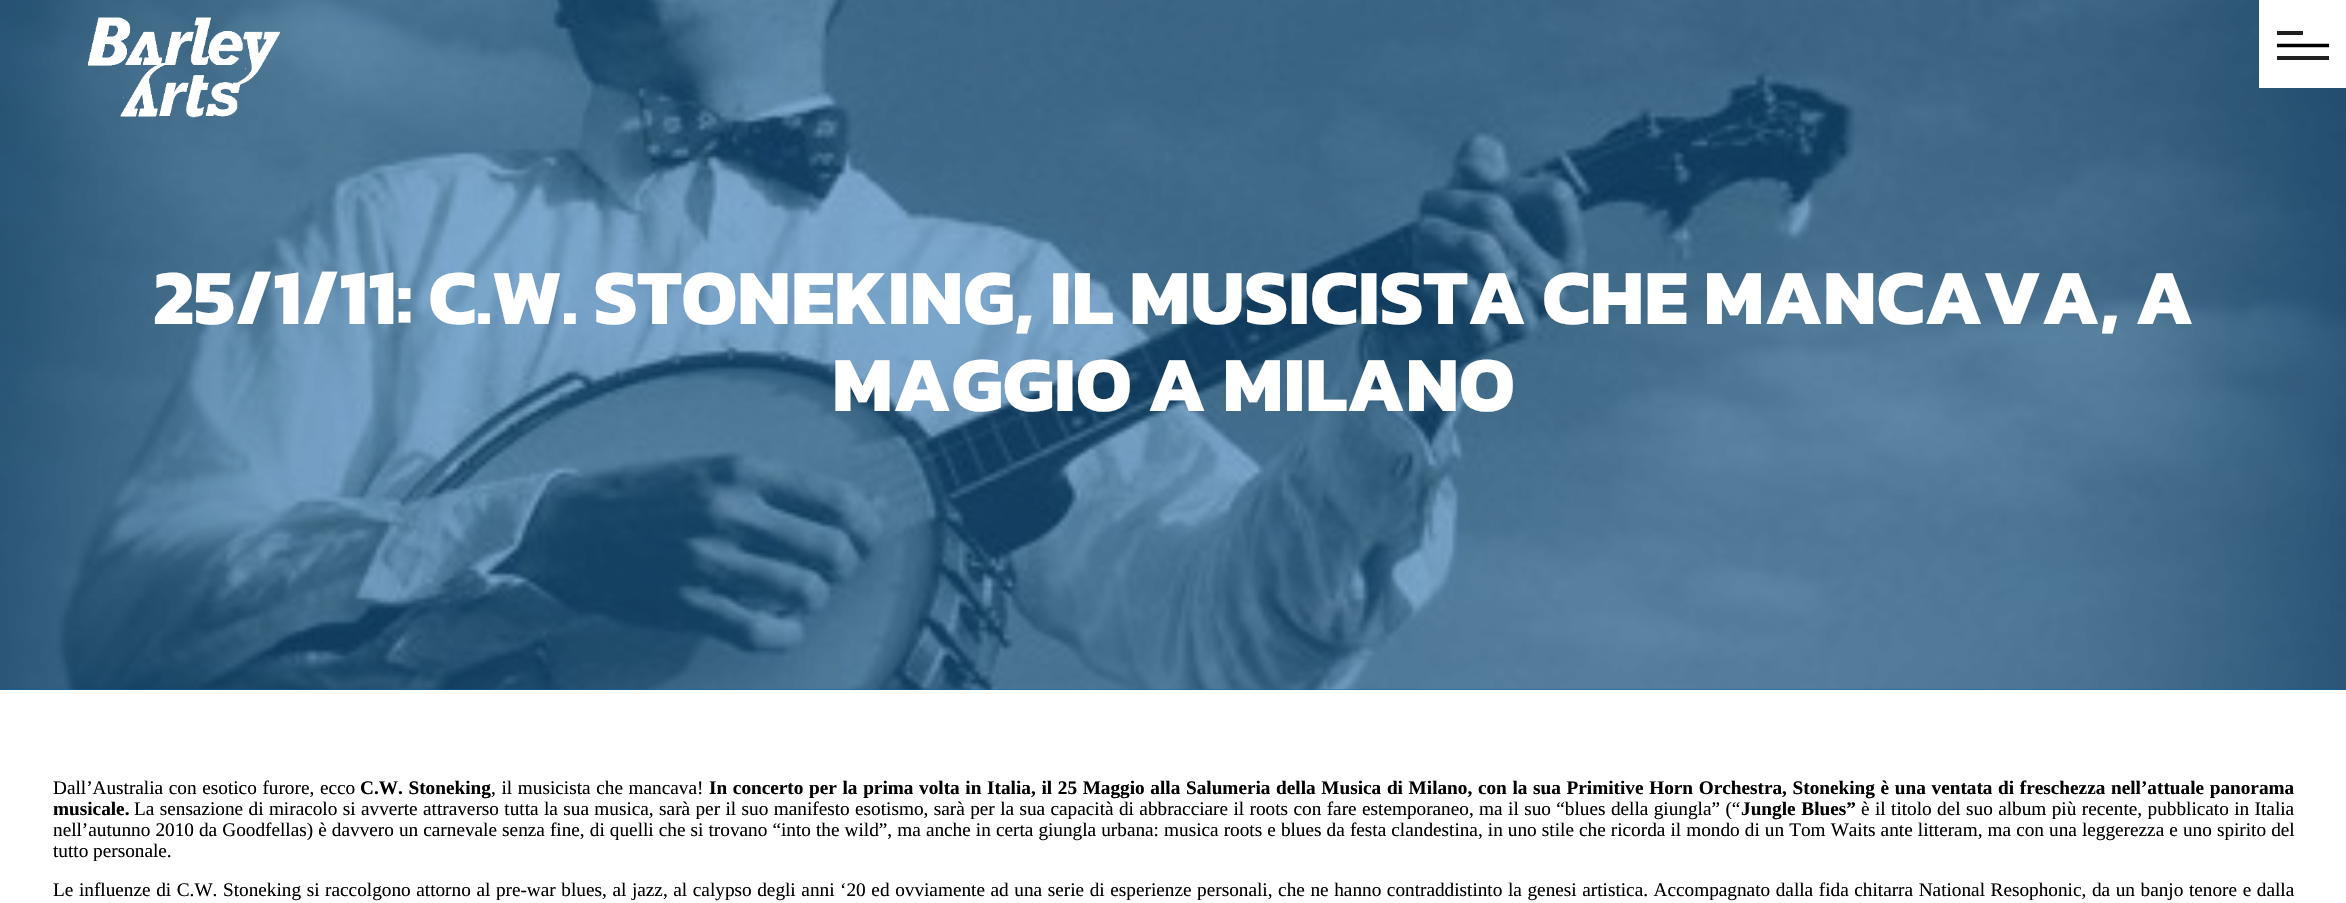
static SkFont makeFont(const char* family, int weight, float size, bool italic = false) {
  SkFontStyle style(weight, SkFontStyle::kNormal_Width,
    italic ? SkFontStyle::kItalic_Slant : SkFontStyle::kUpright_Slant);
  SkFont result(fontMgr->matchFamilyStyle(family, style), size);
  result.setSubpixel(true);
  return result;
}

static void text(SkCanvas* c, const char* s, float x, float y, const SkFont& font, SkColor color) {
  SkPaint ink(SkColor4f::FromColor(color));
  ink.setAntiAlias(true);
  c->drawString(s, x, y, font, ink);
}

static void spacedText(SkCanvas* c, const char* s, float x, float y, const SkFont& font, const SkPaint& ink, float letter, float word) {
  std::vector<SkGlyphID> glyphs(font.countText(s, strlen(s), SkTextEncoding::kUTF8));
  std::vector<float> xs(glyphs.size());
  font.textToGlyphs(s, strlen(s), SkTextEncoding::kUTF8, glyphs);
  font.getXPos(glyphs, xs, x);
  float extra = 0;
  for (size_t i = 0; i < glyphs.size(); i++) {
    xs[i] += extra;
    extra += letter + word * (glyphs[i] == font.unicharToGlyph(' '));
  }
  c->drawTextBlob(SkTextBlob::MakeFromPosHGlyphs(glyphs, xs, y, font), 0, 0, ink);
}

static void box(SkCanvas* c, float l, float t, float r, float b, SkColor color) {
  SkPaint ink(SkColor4f::FromColor(color));
  ink.setAntiAlias(true);
  c->drawRect(SkRect::MakeLTRB(l, t, r, b), ink);
}

static void picture(SkCanvas* c, const char* path, float l, float t, float r, float b) {
  auto image = SkImages::DeferredFromEncodedData(SkData::MakeFromFileName(path));
  c->drawImageRect(image, SkRect::MakeLTRB(l, t, r, b), SkSamplingOptions());
}

void draw(SkCanvas* c) {
  SkPaint paint;
  paint.setAntiAlias(true);
  c->clear(0xffffffff);
  box(c, 0, 689, 2346, 690, 0xff0662b0);
  picture(c, "img_02.png", 0, 0, 2346, 690);
  picture(c, "img_01.png", 87, 17, 280, 118);
  box(c, 2259, 0, 2346, 88, 0xffffffff);
  box(c, 2277, 31, 2303, 35, 0xff202020);
  paint.setStyle(SkPaint::kStroke_Style);
  paint.setStrokeWidth(3.5f);
  paint.setColor(0xff000000);
  c->drawPath(SkPathBuilder().moveTo(2277, 45.5f).lineTo(2329, 45.5f).detach(), paint);
  box(c, 2277, 56, 2329, 60, 0xff202020);
  SkFont face1 = makeFont("Kanit", 700, 78.75f);
  text(c, "25/1/11: C.W. STONEKING, IL MUSICISTA CHE MANCAVA, A", 153, 324, face1, 0xffffffff);
  text(c, "MAGGIO A MILANO", 832, 411, face1, 0xffffffff);
  SkFont face2 = makeFont("Liberation Serif", 400, 19.25f);
  paint.setStyle(SkPaint::kFill_Style);
  spacedText(c, "Dall’Australia con esotico furore, ecco", 53, 794, face2, paint, 0, 0.85f);
  SkFont face3 = makeFont("Liberation Serif", 700, 19.25f);
  spacedText(c, "C.W. Stoneking", 360, 794, face3, paint, 0, 0.85f);
  spacedText(c, ", il musicista che mancava!", 491, 794, face2, paint, 0, 0.85f);
  spacedText(c, "In concerto per la prima volta in Italia, il 25 Maggio alla Salumeria della Musica di Milano, con la sua Primitive Horn Orchestra, Stoneking è una ventata di freschezza nell’attuale panorama", 709, 794, face3, paint, 0, 0.85f);
  text(c, "musicale.", 53, 815, face3, 0xff000000);
  spacedText(c, "La sensazione di miracolo si avverte attraverso tutta la sua musica, sarà per il suo manifesto esotismo, sarà per la sua capacità di abbracciare il roots con fare estemporaneo, ma il suo “blues della giungla” (“", 134, 815, face2, paint, 0, 0.6f);
  spacedText(c, "Jungle Blues”", 1741, 815, face3, paint, 0, 1);
  spacedText(c, "è il titolo del suo album più recente, pubblicato in Italia", 1861, 815, face2, paint, 0, 0.6f);
  spacedText(c, "nell’autunno 2010 da Goodfellas) è davvero un carnevale senza fine, di quelli che si trovano “into the wild”, ma anche in certa giungla urbana: musica roots e blues da festa clandestina, in uno stile che ricorda il mondo di un Tom Waits ante litteram, ma con una leggerezza e uno spirito del", 53, 836, face2, paint, 0, 0.28f);
  text(c, "tutto personale.", 53, 857, face2, 0xff000000);
  spacedText(c, "Le influenze di C.W. Stoneking si raccolgono attorno al pre-war blues, al jazz, al calypso degli anni ‘20 ed ovviamente ad una serie di esperienze personali, che ne hanno contraddistinto la genesi artistica. Accompagnato dalla fida chitarra National Resophonic, da un banjo tenore e dalla", 53, 896, face2, paint, 0, 0.8f);
}
